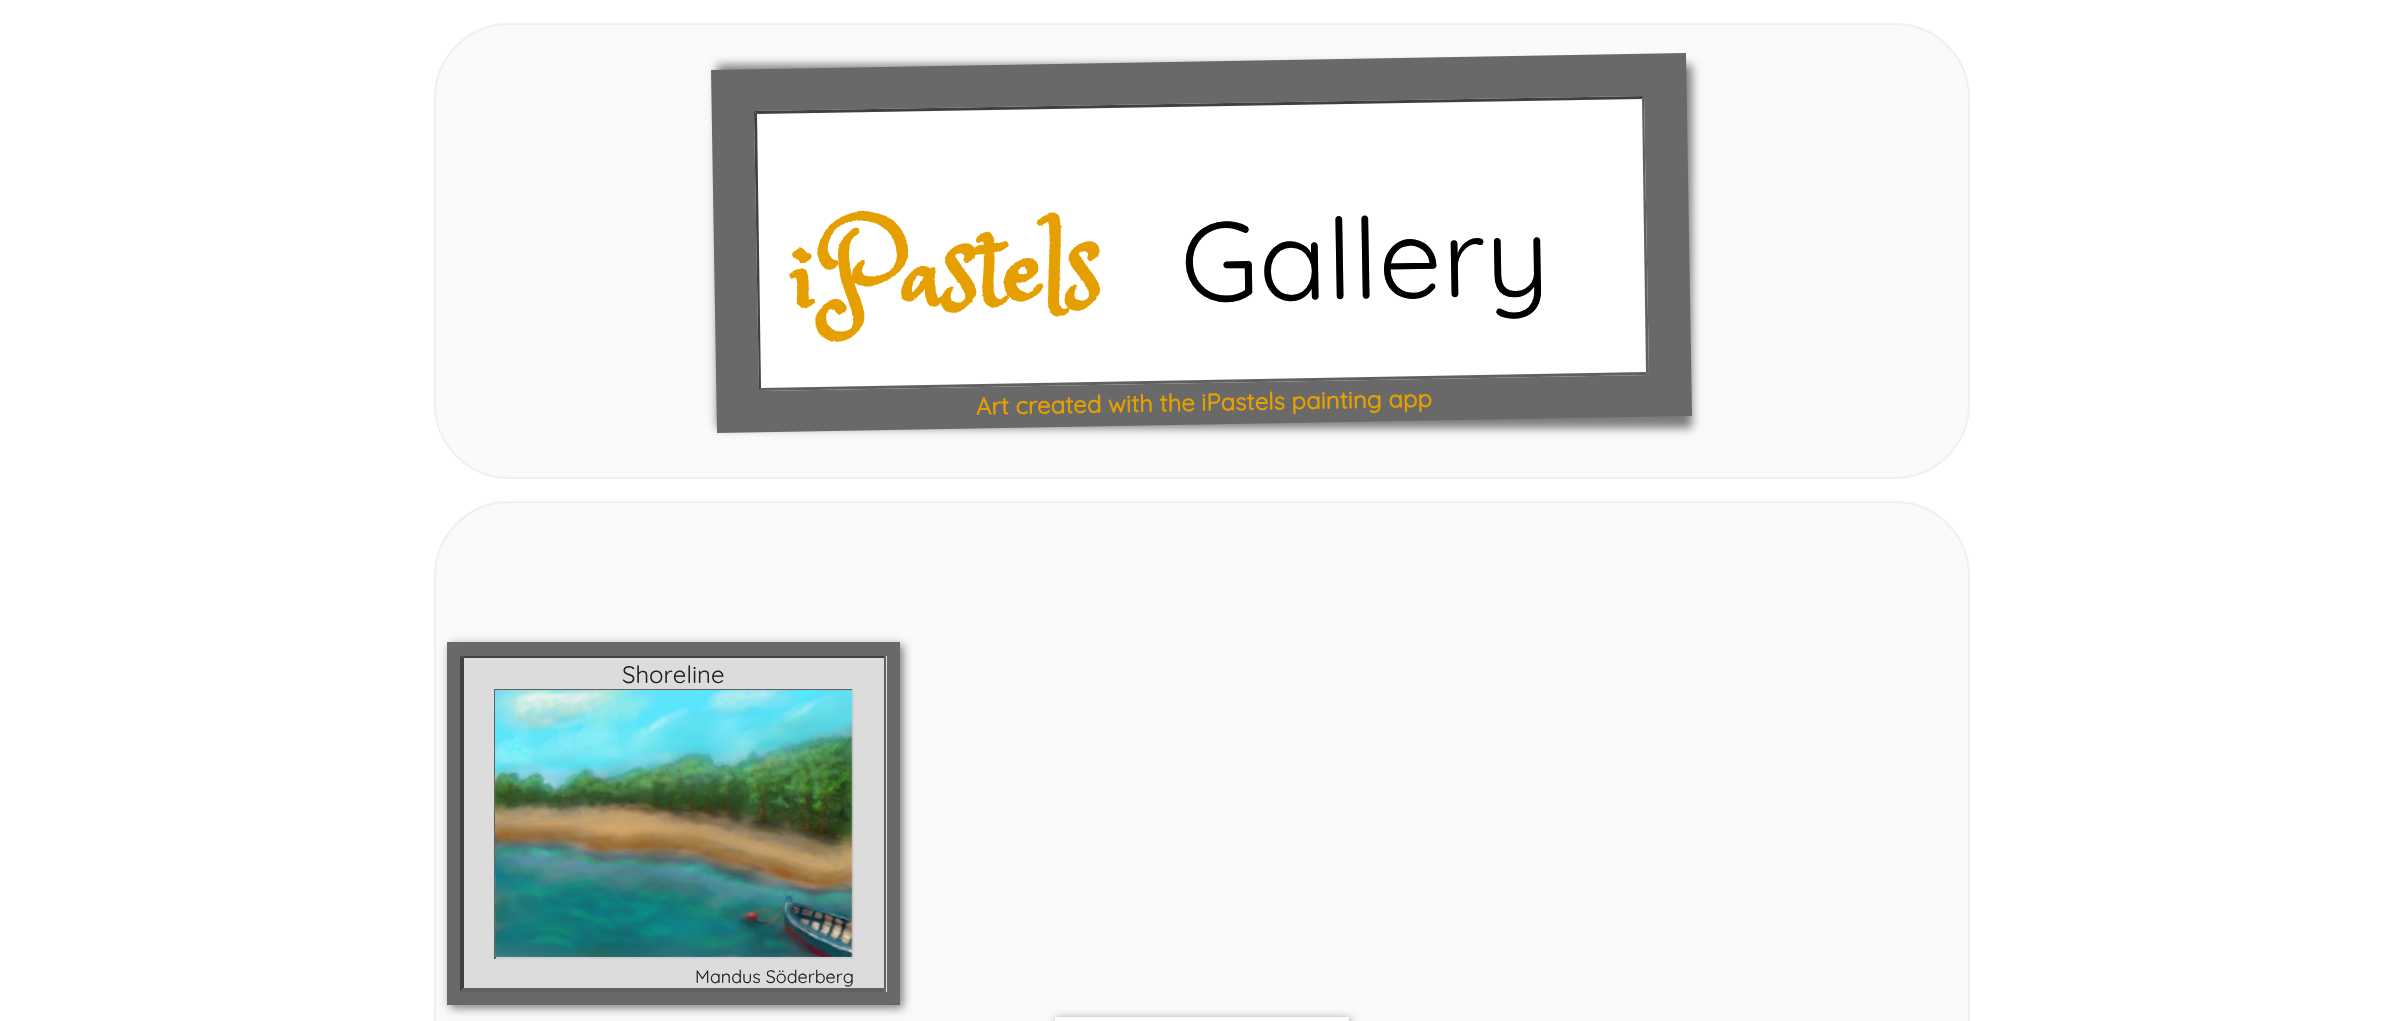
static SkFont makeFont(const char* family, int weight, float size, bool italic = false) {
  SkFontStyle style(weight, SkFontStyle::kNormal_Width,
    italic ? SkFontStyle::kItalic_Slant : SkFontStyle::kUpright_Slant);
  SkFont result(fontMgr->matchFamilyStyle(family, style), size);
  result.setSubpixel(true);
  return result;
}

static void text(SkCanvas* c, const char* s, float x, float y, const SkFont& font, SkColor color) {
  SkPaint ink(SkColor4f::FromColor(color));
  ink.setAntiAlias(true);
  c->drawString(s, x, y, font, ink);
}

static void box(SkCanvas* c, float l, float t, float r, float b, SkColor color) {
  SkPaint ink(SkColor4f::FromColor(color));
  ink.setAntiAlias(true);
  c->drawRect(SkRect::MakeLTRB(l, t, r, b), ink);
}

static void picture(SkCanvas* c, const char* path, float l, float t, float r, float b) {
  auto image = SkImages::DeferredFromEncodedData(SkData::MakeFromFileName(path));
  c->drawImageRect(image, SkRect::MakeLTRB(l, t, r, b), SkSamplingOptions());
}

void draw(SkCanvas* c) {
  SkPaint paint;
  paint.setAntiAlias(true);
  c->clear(0xffffffff);
  paint.setColor(0xfffafafa);
  c->drawRoundRect(SkRect::MakeLTRB(435, 24, 1969, 478), 74, 74, paint);
  paint.setStyle(SkPaint::kStroke_Style);
  paint.setStrokeWidth(2);
  paint.setColor(0xfff0f0f0);
  c->drawRoundRect(SkRect::MakeLTRB(435, 24, 1969, 478), 74, 74, paint);
  paint.setStyle(SkPaint::kFill_Style);
  paint.setColor(0x80000000);
  paint.setMaskFilter(SkMaskFilter::MakeBlur(kNormal_SkBlurStyle, 4.5f));
  c->drawRect(SkRect::MakeLTRB(717, 65, 1692, 428), paint);
  paint.setMaskFilter(nullptr);
  paint.setColor(0xff696969);
  c->drawPath(SkPathBuilder().moveTo(711, 70).lineTo(1686, 53).lineTo(1692, 416).lineTo(717, 433).close().detach(), paint);
  paint.setColor(0xffffffff);
  c->drawPath(SkPathBuilder().moveTo(754, 111).lineTo(1644, 96).lineTo(1649, 375).lineTo(759, 391).close().detach(), paint);
  paint.setColor(0xff404040);
  c->drawPath(SkPathBuilder().moveTo(754, 111).lineTo(1644, 96).lineTo(1642, 99).lineTo(757, 114).close().detach(), paint);
  paint.setColor(0xff606060);
  c->drawPath(SkPathBuilder().moveTo(1644, 96).lineTo(1649, 375).lineTo(1646, 372).lineTo(1642, 99).close().detach(), paint);
  c->drawPath(SkPathBuilder().moveTo(1649, 375).lineTo(759, 391).lineTo(761, 388).lineTo(1646, 372).close().detach(), paint);
  paint.setColor(0xff404040);
  c->drawPath(SkPathBuilder().moveTo(759, 391).lineTo(754, 111).lineTo(757, 114).lineTo(761, 388).close().detach(), paint);
  SkFont face1 = makeFont("Princess Sofia", 700, 111);
  c->save();
  c->rotate(-1, 790, 306);
  text(c, "iPastels", 790, 306, face1, 0xffe69f00);
  c->restore();
  SkFont face2 = makeFont("Quicksand", 300, 112.5f);
  c->save();
  c->rotate(-1, 1181, 302);
  text(c, "Gallery", 1181, 302, face2, 0xff000000);
  c->restore();
  SkFont face3 = makeFont("Quicksand", 700, 24);
  c->save();
  c->rotate(-1, 976, 415);
  text(c, "Art created with the iPastels painting app", 976, 415, face3, 0xffe69f00);
  c->restore();
  paint.setColor(0xfffafafa);
  c->drawRoundRect(SkRect::MakeLTRB(435, 502, 1969, 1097), 74, 74, paint);
  paint.setStyle(SkPaint::kStroke_Style);
  paint.setColor(0xfff0f0f0);
  c->drawRoundRect(SkRect::MakeLTRB(435, 502, 1969, 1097), 74, 74, paint);
  paint.setStyle(SkPaint::kFill_Style);
  paint.setColor(0x80000000);
  paint.setMaskFilter(SkMaskFilter::MakeBlur(kNormal_SkBlurStyle, 4.5f));
  c->drawRect(SkRect::MakeLTRB(450, 645, 903, 1008), paint);
  paint.setMaskFilter(nullptr);
  box(c, 447, 642, 900, 1005, 0xff696969);
  box(c, 461, 656, 887, 992, 0xffdcdcdc);
  paint.setColor(0xff404040);
  c->drawPath(SkPathBuilder().moveTo(460, 656).lineTo(886, 656).lineTo(884, 658).lineTo(464, 658).close().detach(), paint);
  paint.setColor(0xff606060);
  c->drawPath(SkPathBuilder().moveTo(886, 656).lineTo(886, 992).lineTo(884, 988).lineTo(884, 658).close().detach(), paint);
  c->drawPath(SkPathBuilder().moveTo(886, 992).lineTo(460, 992).lineTo(464, 988).lineTo(884, 988).close().detach(), paint);
  paint.setColor(0xff404040);
  c->drawPath(SkPathBuilder().moveTo(460, 992).lineTo(460, 656).lineTo(464, 658).lineTo(464, 988).close().detach(), paint);
  SkFont face4 = makeFont("Quicksand", 300, 24);
  text(c, "Shoreline", 622, 683, face4, 0xff202020);
  box(c, 494, 689, 854, 691, 0xff606060);
  box(c, 852, 689, 854, 959, 0xffd0d0d0);
  box(c, 494, 957, 854, 959, 0xffd0d0d0);
  box(c, 494, 689, 496, 959, 0xff606060);
  picture(c, "img_01.png", 495, 690, 853, 957);
  SkFont face5 = makeFont("Quicksand", 300, 18);
  text(c, "Mandus Söderberg", 695, 983, face5, 0xff202020);
  paint.setColor(0x80000000);
  paint.setMaskFilter(SkMaskFilter::MakeBlur(kNormal_SkBlurStyle, 4));
  c->drawRect(SkRect::MakeLTRB(1056, 1019, 1350, 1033), paint);
  paint.setMaskFilter(nullptr);
  paint.setStyle(SkPaint::kStroke_Style);
  paint.setStrokeWidth(9);
  paint.setColor(0xffffffff);
  c->drawRect(SkRect::MakeLTRB(1059.5f, 1021.5f, 1344.5f, 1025.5f), paint);
}
